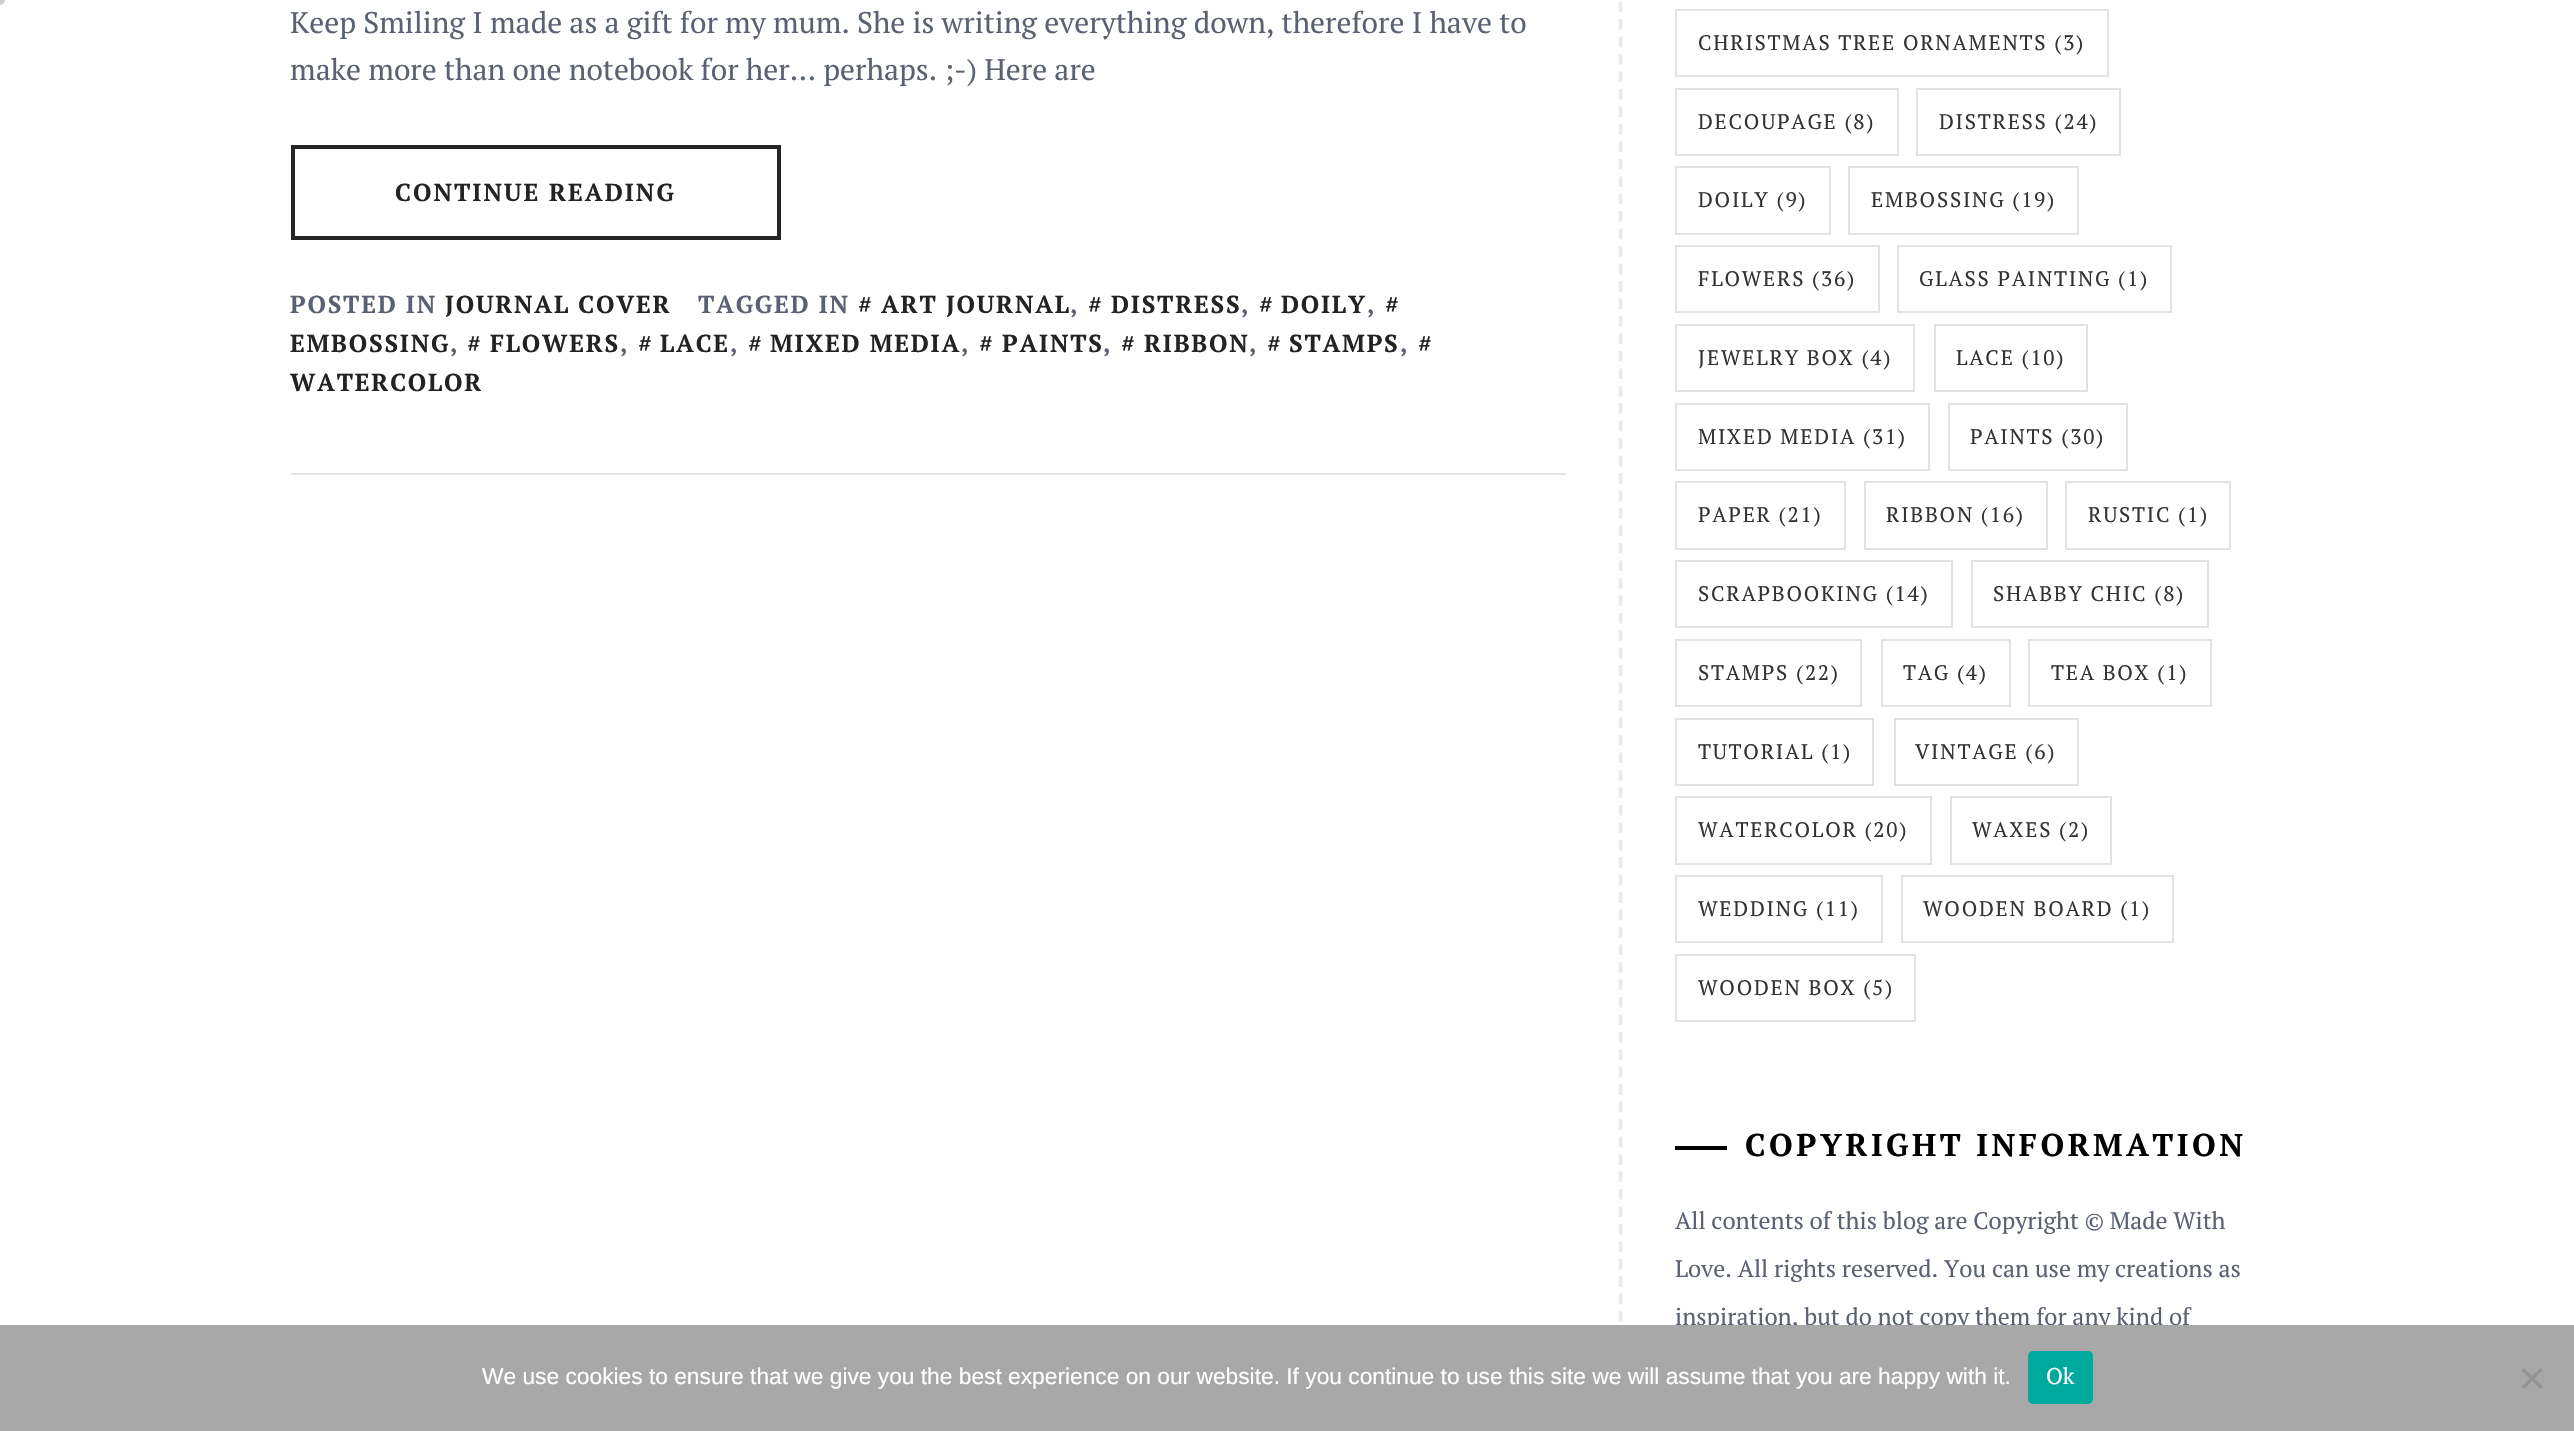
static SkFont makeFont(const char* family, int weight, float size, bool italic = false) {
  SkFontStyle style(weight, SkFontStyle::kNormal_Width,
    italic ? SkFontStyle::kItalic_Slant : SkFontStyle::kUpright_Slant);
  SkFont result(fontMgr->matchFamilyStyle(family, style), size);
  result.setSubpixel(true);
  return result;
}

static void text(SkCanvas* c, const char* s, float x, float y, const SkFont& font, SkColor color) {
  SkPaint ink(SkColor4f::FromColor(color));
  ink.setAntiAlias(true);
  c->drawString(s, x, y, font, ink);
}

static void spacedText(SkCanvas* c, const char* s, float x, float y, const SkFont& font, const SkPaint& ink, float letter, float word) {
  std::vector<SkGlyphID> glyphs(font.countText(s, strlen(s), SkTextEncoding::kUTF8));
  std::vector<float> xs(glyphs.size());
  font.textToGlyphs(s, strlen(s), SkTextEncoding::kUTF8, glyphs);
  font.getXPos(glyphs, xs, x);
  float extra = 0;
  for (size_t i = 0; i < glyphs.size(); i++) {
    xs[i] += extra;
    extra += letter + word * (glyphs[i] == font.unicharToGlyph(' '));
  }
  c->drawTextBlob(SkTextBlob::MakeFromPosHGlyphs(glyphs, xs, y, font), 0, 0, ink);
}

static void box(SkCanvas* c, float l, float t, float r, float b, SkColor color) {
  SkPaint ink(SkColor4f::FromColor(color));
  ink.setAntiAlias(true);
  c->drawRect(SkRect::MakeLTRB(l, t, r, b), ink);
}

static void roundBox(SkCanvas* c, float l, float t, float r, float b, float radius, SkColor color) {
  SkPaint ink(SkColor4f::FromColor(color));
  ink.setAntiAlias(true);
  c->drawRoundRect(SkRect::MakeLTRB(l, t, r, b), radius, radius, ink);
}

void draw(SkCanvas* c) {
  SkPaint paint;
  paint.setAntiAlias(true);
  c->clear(0xffffffff);
  paint.setColor(0xffced0d4);
  c->drawCircle(0, 0, 5, paint);
  box(c, 291, 473, 1566, 475, 0xffe2e2e2);
  SkFont face1 = makeFont("PT Serif", 400, 29.75f);
  text(c, "Keep Smiling I made as a gift for my mum. She is writing everything down, therefore I have to", 290, 33, face1, 0xff596172);
  text(c, "make more than one notebook for her… perhaps. ;-) Here are", 290, 80, face1, 0xff596172);
  paint.setStyle(SkPaint::kStroke_Style);
  paint.setStrokeWidth(4);
  paint.setColor(0xff262626);
  c->drawRect(SkRect::MakeLTRB(293, 147, 779, 238), paint);
  SkFont face2 = makeFont("PT Serif", 700, 24.5f);
  paint.setStyle(SkPaint::kFill_Style);
  paint.setColor(0xff232323);
  spacedText(c, "CONTINUE READING", 395, 201, face2, paint, 2, 0);
  paint.setColor(0xff596172);
  spacedText(c, "TAGGED IN", 698, 313, face2, paint, 1.75f, 0);
  paint.setColor(0xff232323);
  spacedText(c, "#", 858, 313, face2, paint, 1.75f, 0);
  spacedText(c, "ART JOURNAL", 881, 313, face2, paint, 1.75f, 0);
  spacedText(c, "#", 1088, 313, face2, paint, 1.75f, 0);
  spacedText(c, "DISTRESS", 1111, 313, face2, paint, 1.75f, 0);
  spacedText(c, "#", 1259, 313, face2, paint, 1.75f, 0);
  spacedText(c, "DOILY", 1281, 313, face2, paint, 1.75f, 0);
  spacedText(c, "#", 1385, 313, face2, paint, 1.75f, 0);
  spacedText(c, "EMBOSSING", 290, 352, face2, paint, 1.75f, 0);
  paint.setColor(0xff596172);
  spacedText(c, ",", 1070, 313, face2, paint, 1.75f, 0);
  spacedText(c, ",", 1241, 313, face2, paint, 1.75f, 0);
  spacedText(c, ",", 1367, 313, face2, paint, 1.75f, 0);
  paint.setColor(0xff232323);
  spacedText(c, "#", 467, 352, face2, paint, 1.75f, 0);
  spacedText(c, "FLOWERS", 490, 352, face2, paint, 1.75f, 0);
  spacedText(c, "#", 638, 352, face2, paint, 1.75f, 0);
  spacedText(c, "LACE", 660, 352, face2, paint, 1.75f, 0);
  spacedText(c, "#", 748, 352, face2, paint, 1.75f, 0);
  spacedText(c, "MIXED MEDIA", 770, 352, face2, paint, 1.75f, 0);
  spacedText(c, "#", 979, 352, face2, paint, 1.75f, 0);
  spacedText(c, "PAINTS", 1002, 352, face2, paint, 1.75f, 0);
  spacedText(c, "#", 1121, 352, face2, paint, 1.75f, 0);
  spacedText(c, "RIBBON", 1144, 352, face2, paint, 1.75f, 0);
  spacedText(c, "#", 1267, 352, face2, paint, 1.75f, 0);
  spacedText(c, "STAMPS", 1289, 352, face2, paint, 1.75f, 0);
  spacedText(c, "#", 1418, 352, face2, paint, 1.75f, 0);
  spacedText(c, "WATERCOLOR", 290, 391, face2, paint, 1.75f, 0);
  paint.setColor(0xff596172);
  spacedText(c, ",", 450, 352, face2, paint, 1.75f, 0);
  spacedText(c, ",", 620, 352, face2, paint, 1.75f, 0);
  spacedText(c, ",", 730, 352, face2, paint, 1.75f, 0);
  spacedText(c, ",", 961, 352, face2, paint, 1.75f, 0);
  spacedText(c, ",", 1103, 352, face2, paint, 1.75f, 0);
  spacedText(c, ",", 1249, 352, face2, paint, 1.75f, 0);
  spacedText(c, ",", 1400, 352, face2, paint, 1.75f, 0);
  spacedText(c, "POSTED IN", 290, 313, face2, paint, 1.75f, 0);
  paint.setColor(0xff232323);
  spacedText(c, "JOURNAL COVER", 445, 313, face2, paint, 1.75f, 0);
  paint.setStyle(SkPaint::kStroke_Style);
  paint.setStrokeWidth(3.5f);
  paint.setColor(0xffeaeaea);
  paint.setPathEffect(SkDashPathEffect::Make({{10.5f, 6.96f}}, 0));
  c->drawPath(SkPathBuilder().moveTo(1620.5f, -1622).lineTo(1620.5f, 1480.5f).detach(), paint);
  paint.setPathEffect(nullptr);
  paint.setStrokeWidth(2);
  paint.setColor(0xffe2e2e2);
  c->drawRect(SkRect::MakeLTRB(1676, 10, 2108, 76), paint);
  SkFont face3 = makeFont("PT Serif", 400, 21);
  paint.setStyle(SkPaint::kFill_Style);
  paint.setColor(0xff333333);
  spacedText(c, "CHRISTMAS TREE ORNAMENTS (3)", 1698, 50, face3, paint, 1.75f, 0);
  paint.setStyle(SkPaint::kStroke_Style);
  paint.setColor(0xffe2e2e2);
  c->drawRect(SkRect::MakeLTRB(1676, 89, 1898, 155), paint);
  paint.setStyle(SkPaint::kFill_Style);
  paint.setColor(0xff333333);
  spacedText(c, "DECOUPAGE (8)", 1698, 129, face3, paint, 1.75f, 0);
  paint.setStyle(SkPaint::kStroke_Style);
  paint.setColor(0xffe2e2e2);
  c->drawRect(SkRect::MakeLTRB(1917, 89, 2120, 155), paint);
  paint.setStyle(SkPaint::kFill_Style);
  paint.setColor(0xff333333);
  spacedText(c, "DISTRESS (24)", 1939, 129, face3, paint, 1.75f, 0);
  paint.setStyle(SkPaint::kStroke_Style);
  paint.setColor(0xffe2e2e2);
  c->drawRect(SkRect::MakeLTRB(1676, 167, 1830, 234), paint);
  paint.setStyle(SkPaint::kFill_Style);
  paint.setColor(0xff333333);
  spacedText(c, "DOILY (9)", 1698, 207, face3, paint, 1.75f, 0);
  paint.setStyle(SkPaint::kStroke_Style);
  paint.setColor(0xffe2e2e2);
  c->drawRect(SkRect::MakeLTRB(1849, 167, 2078, 234), paint);
  paint.setStyle(SkPaint::kFill_Style);
  paint.setColor(0xff333333);
  spacedText(c, "EMBOSSING (19)", 1871, 207, face3, paint, 1.75f, 0);
  paint.setStyle(SkPaint::kStroke_Style);
  paint.setColor(0xffe2e2e2);
  c->drawRect(SkRect::MakeLTRB(1676, 246, 1879, 312), paint);
  paint.setStyle(SkPaint::kFill_Style);
  paint.setColor(0xff333333);
  spacedText(c, "FLOWERS (36)", 1698, 286, face3, paint, 1.75f, 0);
  paint.setStyle(SkPaint::kStroke_Style);
  paint.setColor(0xffe2e2e2);
  c->drawRect(SkRect::MakeLTRB(1898, 246, 2171, 312), paint);
  paint.setStyle(SkPaint::kFill_Style);
  paint.setColor(0xff333333);
  spacedText(c, "GLASS PAINTING (1)", 1919, 286, face3, paint, 1.75f, 0);
  paint.setStyle(SkPaint::kStroke_Style);
  paint.setColor(0xffe2e2e2);
  c->drawRect(SkRect::MakeLTRB(1676, 325, 1914, 391), paint);
  paint.setStyle(SkPaint::kFill_Style);
  paint.setColor(0xff333333);
  spacedText(c, "JEWELRY BOX (4)", 1698, 365, face3, paint, 1.75f, 0);
  paint.setStyle(SkPaint::kStroke_Style);
  paint.setColor(0xffe2e2e2);
  c->drawRect(SkRect::MakeLTRB(1935, 325, 2087, 391), paint);
  paint.setStyle(SkPaint::kFill_Style);
  paint.setColor(0xff333333);
  spacedText(c, "LACE (10)", 1956, 365, face3, paint, 1.75f, 0);
  paint.setStyle(SkPaint::kStroke_Style);
  paint.setColor(0xffe2e2e2);
  c->drawRect(SkRect::MakeLTRB(1676, 404, 1929, 470), paint);
  paint.setStyle(SkPaint::kFill_Style);
  paint.setColor(0xff333333);
  spacedText(c, "MIXED MEDIA (31)", 1698, 444, face3, paint, 1.75f, 0);
  paint.setStyle(SkPaint::kStroke_Style);
  paint.setColor(0xffe2e2e2);
  c->drawRect(SkRect::MakeLTRB(1949, 404, 2127, 470), paint);
  paint.setStyle(SkPaint::kFill_Style);
  paint.setColor(0xff333333);
  spacedText(c, "PAINTS (30)", 1970, 444, face3, paint, 1.75f, 0);
  paint.setStyle(SkPaint::kStroke_Style);
  paint.setColor(0xffe2e2e2);
  c->drawRect(SkRect::MakeLTRB(1676, 482, 1845, 549), paint);
  paint.setStyle(SkPaint::kFill_Style);
  paint.setColor(0xff333333);
  spacedText(c, "PAPER (21)", 1698, 522, face3, paint, 1.75f, 0);
  paint.setStyle(SkPaint::kStroke_Style);
  paint.setColor(0xffe2e2e2);
  c->drawRect(SkRect::MakeLTRB(1865, 482, 2047, 549), paint);
  paint.setStyle(SkPaint::kFill_Style);
  paint.setColor(0xff333333);
  spacedText(c, "RIBBON (16)", 1886, 522, face3, paint, 1.75f, 0);
  paint.setStyle(SkPaint::kStroke_Style);
  paint.setColor(0xffe2e2e2);
  c->drawRect(SkRect::MakeLTRB(2066, 482, 2230, 549), paint);
  paint.setStyle(SkPaint::kFill_Style);
  paint.setColor(0xff333333);
  spacedText(c, "RUSTIC (1)", 2088, 522, face3, paint, 1.75f, 0);
  paint.setStyle(SkPaint::kStroke_Style);
  paint.setColor(0xffe2e2e2);
  c->drawRect(SkRect::MakeLTRB(1676, 561, 1952, 627), paint);
  paint.setStyle(SkPaint::kFill_Style);
  paint.setColor(0xff333333);
  spacedText(c, "SCRAPBOOKING (14)", 1698, 601, face3, paint, 1.75f, 0);
  paint.setStyle(SkPaint::kStroke_Style);
  paint.setColor(0xffe2e2e2);
  c->drawRect(SkRect::MakeLTRB(1972, 561, 2208, 627), paint);
  paint.setStyle(SkPaint::kFill_Style);
  paint.setColor(0xff333333);
  spacedText(c, "SHABBY CHIC (8)", 1993, 601, face3, paint, 1.75f, 0);
  paint.setStyle(SkPaint::kStroke_Style);
  paint.setColor(0xffe2e2e2);
  c->drawRect(SkRect::MakeLTRB(1676, 640, 1861, 706), paint);
  paint.setStyle(SkPaint::kFill_Style);
  paint.setColor(0xff333333);
  spacedText(c, "STAMPS (22)", 1698, 680, face3, paint, 1.75f, 0);
  paint.setStyle(SkPaint::kStroke_Style);
  paint.setColor(0xffe2e2e2);
  c->drawRect(SkRect::MakeLTRB(1882, 640, 2010, 706), paint);
  paint.setStyle(SkPaint::kFill_Style);
  paint.setColor(0xff333333);
  spacedText(c, "TAG (4)", 1903, 680, face3, paint, 1.75f, 0);
  paint.setStyle(SkPaint::kStroke_Style);
  paint.setColor(0xffe2e2e2);
  c->drawRect(SkRect::MakeLTRB(2029, 640, 2211, 706), paint);
  paint.setStyle(SkPaint::kFill_Style);
  paint.setColor(0xff333333);
  spacedText(c, "TEA BOX (1)", 2051, 680, face3, paint, 1.75f, 0);
  paint.setStyle(SkPaint::kStroke_Style);
  paint.setColor(0xffe2e2e2);
  c->drawRect(SkRect::MakeLTRB(1676, 719, 1873, 785), paint);
  paint.setStyle(SkPaint::kFill_Style);
  paint.setColor(0xff333333);
  spacedText(c, "TUTORIAL (1)", 1698, 759, face3, paint, 1.75f, 0);
  paint.setStyle(SkPaint::kStroke_Style);
  paint.setColor(0xffe2e2e2);
  c->drawRect(SkRect::MakeLTRB(1895, 719, 2078, 785), paint);
  paint.setStyle(SkPaint::kFill_Style);
  paint.setColor(0xff333333);
  spacedText(c, "VINTAGE (6)", 1915, 759, face3, paint, 1.75f, 0);
  paint.setStyle(SkPaint::kStroke_Style);
  paint.setColor(0xffe2e2e2);
  c->drawRect(SkRect::MakeLTRB(1676, 797, 1931, 864), paint);
  paint.setStyle(SkPaint::kFill_Style);
  paint.setColor(0xff333333);
  spacedText(c, "WATERCOLOR (20)", 1698, 837, face3, paint, 1.75f, 0);
  paint.setStyle(SkPaint::kStroke_Style);
  paint.setColor(0xffe2e2e2);
  c->drawRect(SkRect::MakeLTRB(1951, 797, 2111, 864), paint);
  paint.setStyle(SkPaint::kFill_Style);
  paint.setColor(0xff333333);
  spacedText(c, "WAXES (2)", 1972, 837, face3, paint, 1.75f, 0);
  paint.setStyle(SkPaint::kStroke_Style);
  paint.setColor(0xffe2e2e2);
  c->drawRect(SkRect::MakeLTRB(1676, 876, 1882, 942), paint);
  paint.setStyle(SkPaint::kFill_Style);
  paint.setColor(0xff333333);
  spacedText(c, "WEDDING (11)", 1698, 916, face3, paint, 1.75f, 0);
  paint.setStyle(SkPaint::kStroke_Style);
  paint.setColor(0xffe2e2e2);
  c->drawRect(SkRect::MakeLTRB(1902, 876, 2173, 942), paint);
  paint.setStyle(SkPaint::kFill_Style);
  paint.setColor(0xff333333);
  spacedText(c, "WOODEN BOARD (1)", 1923, 916, face3, paint, 1.75f, 0);
  paint.setStyle(SkPaint::kStroke_Style);
  paint.setColor(0xffe2e2e2);
  c->drawRect(SkRect::MakeLTRB(1676, 955, 1915, 1021), paint);
  paint.setStyle(SkPaint::kFill_Style);
  paint.setColor(0xff333333);
  spacedText(c, "WOODEN BOX (5)", 1698, 995, face3, paint, 1.75f, 0);
  box(c, 1675, 1146, 1727, 1150, 0xff000000);
  SkFont face4 = makeFont("PT Serif", 700, 31.5f);
  paint.setColor(0xff000000);
  spacedText(c, "COPYRIGHT INFORMATION", 1745, 1156, face4, paint, 3.5f, 0);
  SkFont face5 = makeFont("PT Serif", 400, 23.8f);
  text(c, "All contents of this blog are Copyright © Made With", 1675, 1229, face5, 0xff596172);
  text(c, "Love. All rights reserved. You can use my creations as", 1675, 1277, face5, 0xff596172);
  text(c, "inspiration, but do not copy them for any kind of", 1675, 1325, face5, 0xff596172);
  box(c, 0, 1325, 2574, 1431, 0xffa8a8a8);
  SkFont face6 = makeFont("Liberation Sans", 400, 22.75f);
  text(c, "We use cookies to ensure that we give you the best experience on our website. If you continue to use this site we will assume that you are happy with it.", 482, 1384, face6, 0xffffffff);
  roundBox(c, 2028, 1351, 2093, 1404, 5, 0xff00a99d);
  SkFont face7 = makeFont("PT Serif", 400, 22.75f);
  text(c, "Ok", 2046, 1384, face7, 0xffffffff);
  paint.setColor(0xff949494);
  c->drawPath(SkPathBuilder().moveTo(2540.5f, 1368).lineTo(2543, 1370.5f).lineTo(2524, 1389).lineTo(2521.5f, 1386.5f).close().detach(), paint);
  c->drawPath(SkPathBuilder().moveTo(2521.5f, 1370.5f).lineTo(2524, 1368).lineTo(2543, 1386.5f).lineTo(2540.5f, 1389).close().detach(), paint);
}
